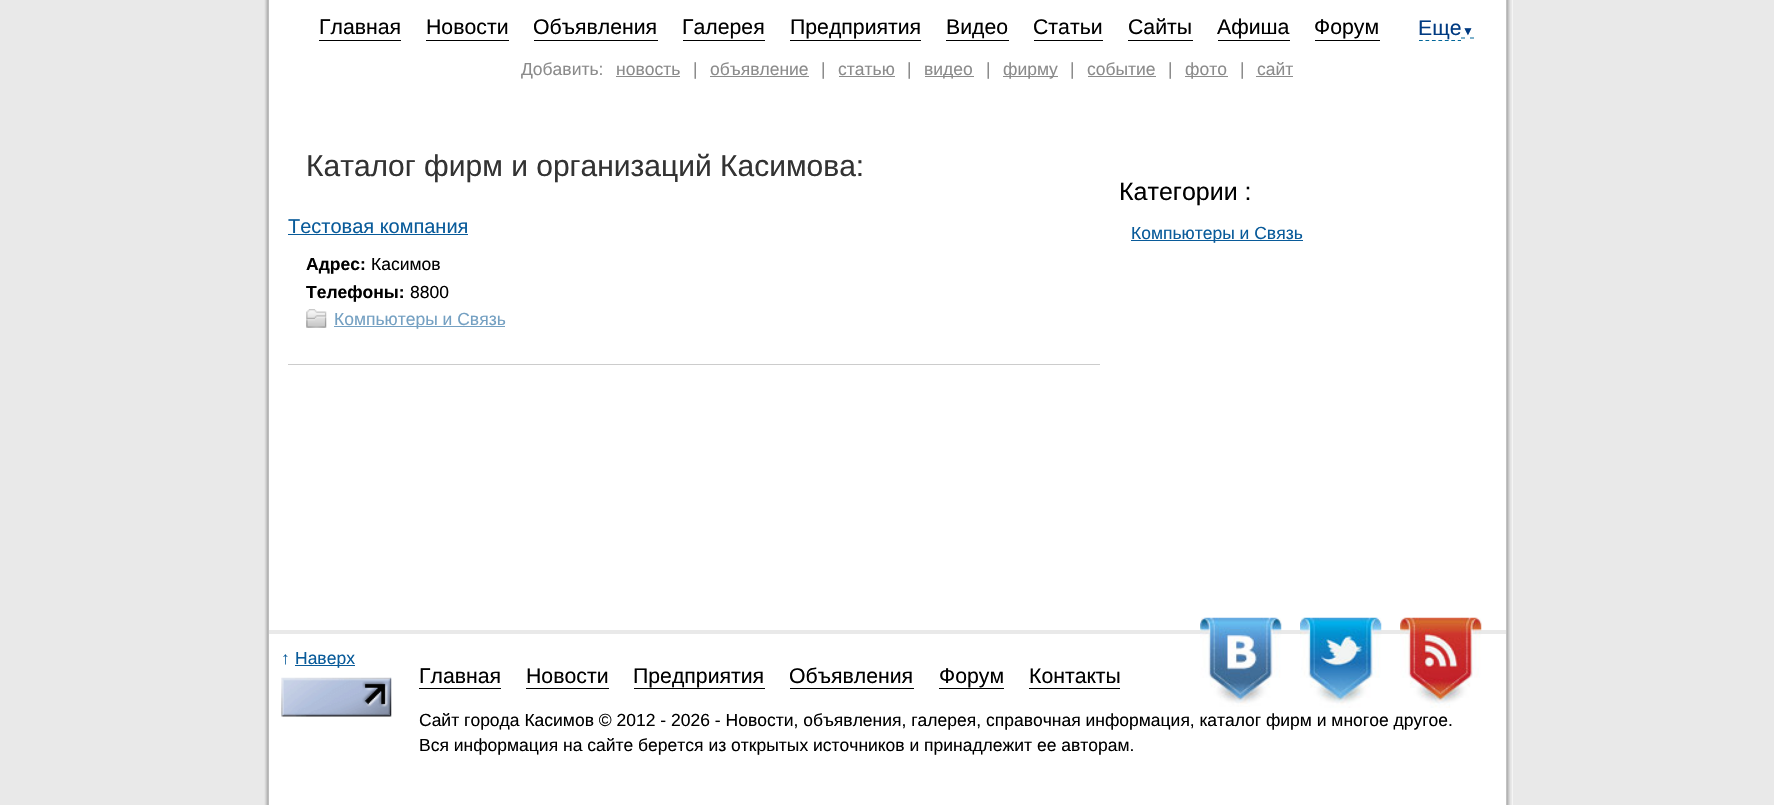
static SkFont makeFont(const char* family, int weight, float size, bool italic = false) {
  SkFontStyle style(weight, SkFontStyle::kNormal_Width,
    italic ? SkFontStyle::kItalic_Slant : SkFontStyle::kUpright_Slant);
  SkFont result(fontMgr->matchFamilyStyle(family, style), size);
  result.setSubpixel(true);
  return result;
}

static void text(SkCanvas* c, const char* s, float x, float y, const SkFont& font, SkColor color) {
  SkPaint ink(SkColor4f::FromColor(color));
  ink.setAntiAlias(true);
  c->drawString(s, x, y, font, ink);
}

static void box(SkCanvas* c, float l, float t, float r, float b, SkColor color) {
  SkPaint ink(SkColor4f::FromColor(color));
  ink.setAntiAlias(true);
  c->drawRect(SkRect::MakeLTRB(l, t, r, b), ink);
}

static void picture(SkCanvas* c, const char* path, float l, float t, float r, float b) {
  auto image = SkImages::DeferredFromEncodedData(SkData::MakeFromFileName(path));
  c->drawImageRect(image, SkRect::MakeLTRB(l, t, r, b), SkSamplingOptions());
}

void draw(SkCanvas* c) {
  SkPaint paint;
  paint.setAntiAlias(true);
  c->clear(0xffe9e9e9);
  box(c, 1512, 0, 1513, 805, 0xffffffff);
  picture(c, "img_01.png", 263, 0, 1513, 805);
  box(c, 319, 40, 401, 41, 0xff000000);
  SkFont face1 = makeFont("Liberation Sans", 400, 21.25f);
  text(c, "Главная", 319, 34, face1, 0xff000000);
  box(c, 426, 40, 509, 41, 0xff000000);
  text(c, "Новости", 426, 34, face1, 0xff000000);
  box(c, 534, 40, 658, 41, 0xff000000);
  text(c, "Объявления", 533, 34, face1, 0xff000000);
  box(c, 683, 40, 765, 41, 0xff000000);
  text(c, "Галерея", 682, 34, face1, 0xff000000);
  box(c, 790, 40, 921, 41, 0xff000000);
  text(c, "Предприятия", 790, 34, face1, 0xff000000);
  box(c, 946, 40, 1009, 41, 0xff000000);
  text(c, "Видео", 946, 34, face1, 0xff000000);
  box(c, 1034, 40, 1103, 41, 0xff000000);
  text(c, "Статьи", 1033, 34, face1, 0xff000000);
  box(c, 1128, 40, 1193, 41, 0xff000000);
  text(c, "Сайты", 1128, 34, face1, 0xff000000);
  box(c, 1218, 40, 1290, 41, 0xff000000);
  text(c, "Афиша", 1217, 34, face1, 0xff000000);
  box(c, 1315, 40, 1380, 41, 0xff000000);
  text(c, "Форум", 1314, 34, face1, 0xff000000);
  paint.setStyle(SkPaint::kStroke_Style);
  paint.setStrokeWidth(1.2f);
  paint.setColor(0xff006699);
  paint.setPathEffect(SkDashPathEffect::Make({{3.75f, 2.71f}}, 0));
  c->drawPath(SkPathBuilder().moveTo(1419, 40.5f).lineTo(1461, 40.5f).detach(), paint);
  paint.setPathEffect(nullptr);
  text(c, "Еще", 1418, 35, face1, 0xff003a81);
  SkFont face2 = makeFont("Liberation Sans", 400, 12);
  text(c, "▼", 1462, 35, face2, 0xff003a81);
  c->drawPath(SkPathBuilder().moveTo(1461, 38).lineTo(1465, 38).moveTo(1470, 38).lineTo(1474, 38).detach(), paint);
  SkFont face3 = makeFont("Liberation Sans", 400, 17.5f);
  text(c, "Добавить:", 521, 75, face3, 0xff8b8b8b);
  text(c, "новость", 616, 75, face3, 0xff8b8b8b);
  box(c, 616, 76, 680, 77, 0xff8b8b8b);
  text(c, "|", 693, 75, face3, 0xff8b8b8b);
  text(c, "объявление", 710, 75, face3, 0xff8b8b8b);
  box(c, 710, 76, 809, 77, 0xff8b8b8b);
  text(c, "|", 821, 75, face3, 0xff8b8b8b);
  text(c, "статью", 838, 75, face3, 0xff8b8b8b);
  box(c, 839, 76, 895, 77, 0xff8b8b8b);
  text(c, "|", 907, 75, face3, 0xff8b8b8b);
  box(c, 925, 76, 974, 77, 0xff8b8b8b);
  text(c, "видео", 924, 75, face3, 0xff8b8b8b);
  text(c, "|", 986, 75, face3, 0xff8b8b8b);
  box(c, 1003, 76, 1058, 77, 0xff8b8b8b);
  text(c, "фирму", 1003, 75, face3, 0xff8b8b8b);
  text(c, "|", 1070, 75, face3, 0xff8b8b8b);
  text(c, "событие", 1087, 75, face3, 0xff8b8b8b);
  box(c, 1088, 76, 1156, 77, 0xff8b8b8b);
  text(c, "|", 1168, 75, face3, 0xff8b8b8b);
  box(c, 1185, 76, 1228, 77, 0xff8b8b8b);
  text(c, "фото", 1185, 75, face3, 0xff8b8b8b);
  text(c, "|", 1240, 75, face3, 0xff8b8b8b);
  text(c, "сайт", 1257, 75, face3, 0xff8b8b8b);
  box(c, 1256, 76, 1293, 77, 0xff8b8b8b);
  SkFont face4 = makeFont("Liberation Sans", 400, 30);
  text(c, "Каталог фирм и организаций Касимова:", 306, 176, face4, 0xff333333);
  box(c, 288, 364, 1100, 365, 0xffcccccc);
  SkFont face5 = makeFont("Liberation Sans", 400, 20);
  text(c, "Тестовая компания", 288, 233, face5, 0xff095b9a);
  box(c, 288, 234, 468, 235, 0xff095b9a);
  SkFont face6 = makeFont("Liberation Sans", 700, 17.5f);
  text(c, "Адрес:", 306, 270, face6, 0xff000000);
  text(c, "Касимов", 371, 270, face3, 0xff000000);
  text(c, "Телефоны:", 306, 298, face6, 0xff000000);
  text(c, "8800", 410, 298, face3, 0xff000000);
  picture(c, "img_02.png", 306, 309, 327, 328);
  box(c, 334, 326, 505, 327, 0xff74a0c2);
  text(c, "Компьютеры и Связь", 334, 325, face3, 0xff74a0c2);
  SkFont face7 = makeFont("Liberation Sans", 400, 25);
  text(c, "Категории :", 1119, 200, face7, 0xff000000);
  box(c, 1131, 240, 1303, 241, 0xff095b9a);
  text(c, "Компьютеры и Связь", 1131, 239, face3, 0xff095b9a);
  box(c, 269, 630, 1506, 634, 0xffe9e9e9);
  text(c, "↑", 281, 664, face3, 0xff095b9a);
  box(c, 295, 665, 355, 666, 0xff095b9a);
  text(c, "Наверх", 295, 664, face3, 0xff095b9a);
  picture(c, "img_03.png", 281, 677, 392, 717);
  picture(c, "img_04.png", 1200, 617, 1282, 707);
  picture(c, "img_05.png", 1300, 617, 1382, 708);
  picture(c, "img_06.png", 1400, 617, 1482, 708);
  box(c, 419, 688, 501, 689, 0xff000000);
  text(c, "Главная", 419, 683, face1, 0xff000000);
  box(c, 526, 688, 609, 689, 0xff000000);
  text(c, "Новости", 526, 683, face1, 0xff000000);
  box(c, 634, 688, 765, 689, 0xff000000);
  text(c, "Предприятия", 633, 683, face1, 0xff000000);
  box(c, 790, 688, 914, 689, 0xff000000);
  text(c, "Объявления", 789, 683, face1, 0xff000000);
  box(c, 939, 688, 1004, 689, 0xff000000);
  text(c, "Форум", 939, 683, face1, 0xff000000);
  box(c, 1029, 688, 1120, 689, 0xff000000);
  text(c, "Контакты", 1029, 683, face1, 0xff000000);
  text(c, "Сайт города Касимов © 2012 - 2026 - Новости, объявления, галерея, справочная информация, каталог фирм и многое другое.", 419, 726, face3, 0xff000000);
  text(c, "Вся информация на сайте берется из открытых источников и принадлежит ее авторам.", 419, 751, face3, 0xff000000);
}
